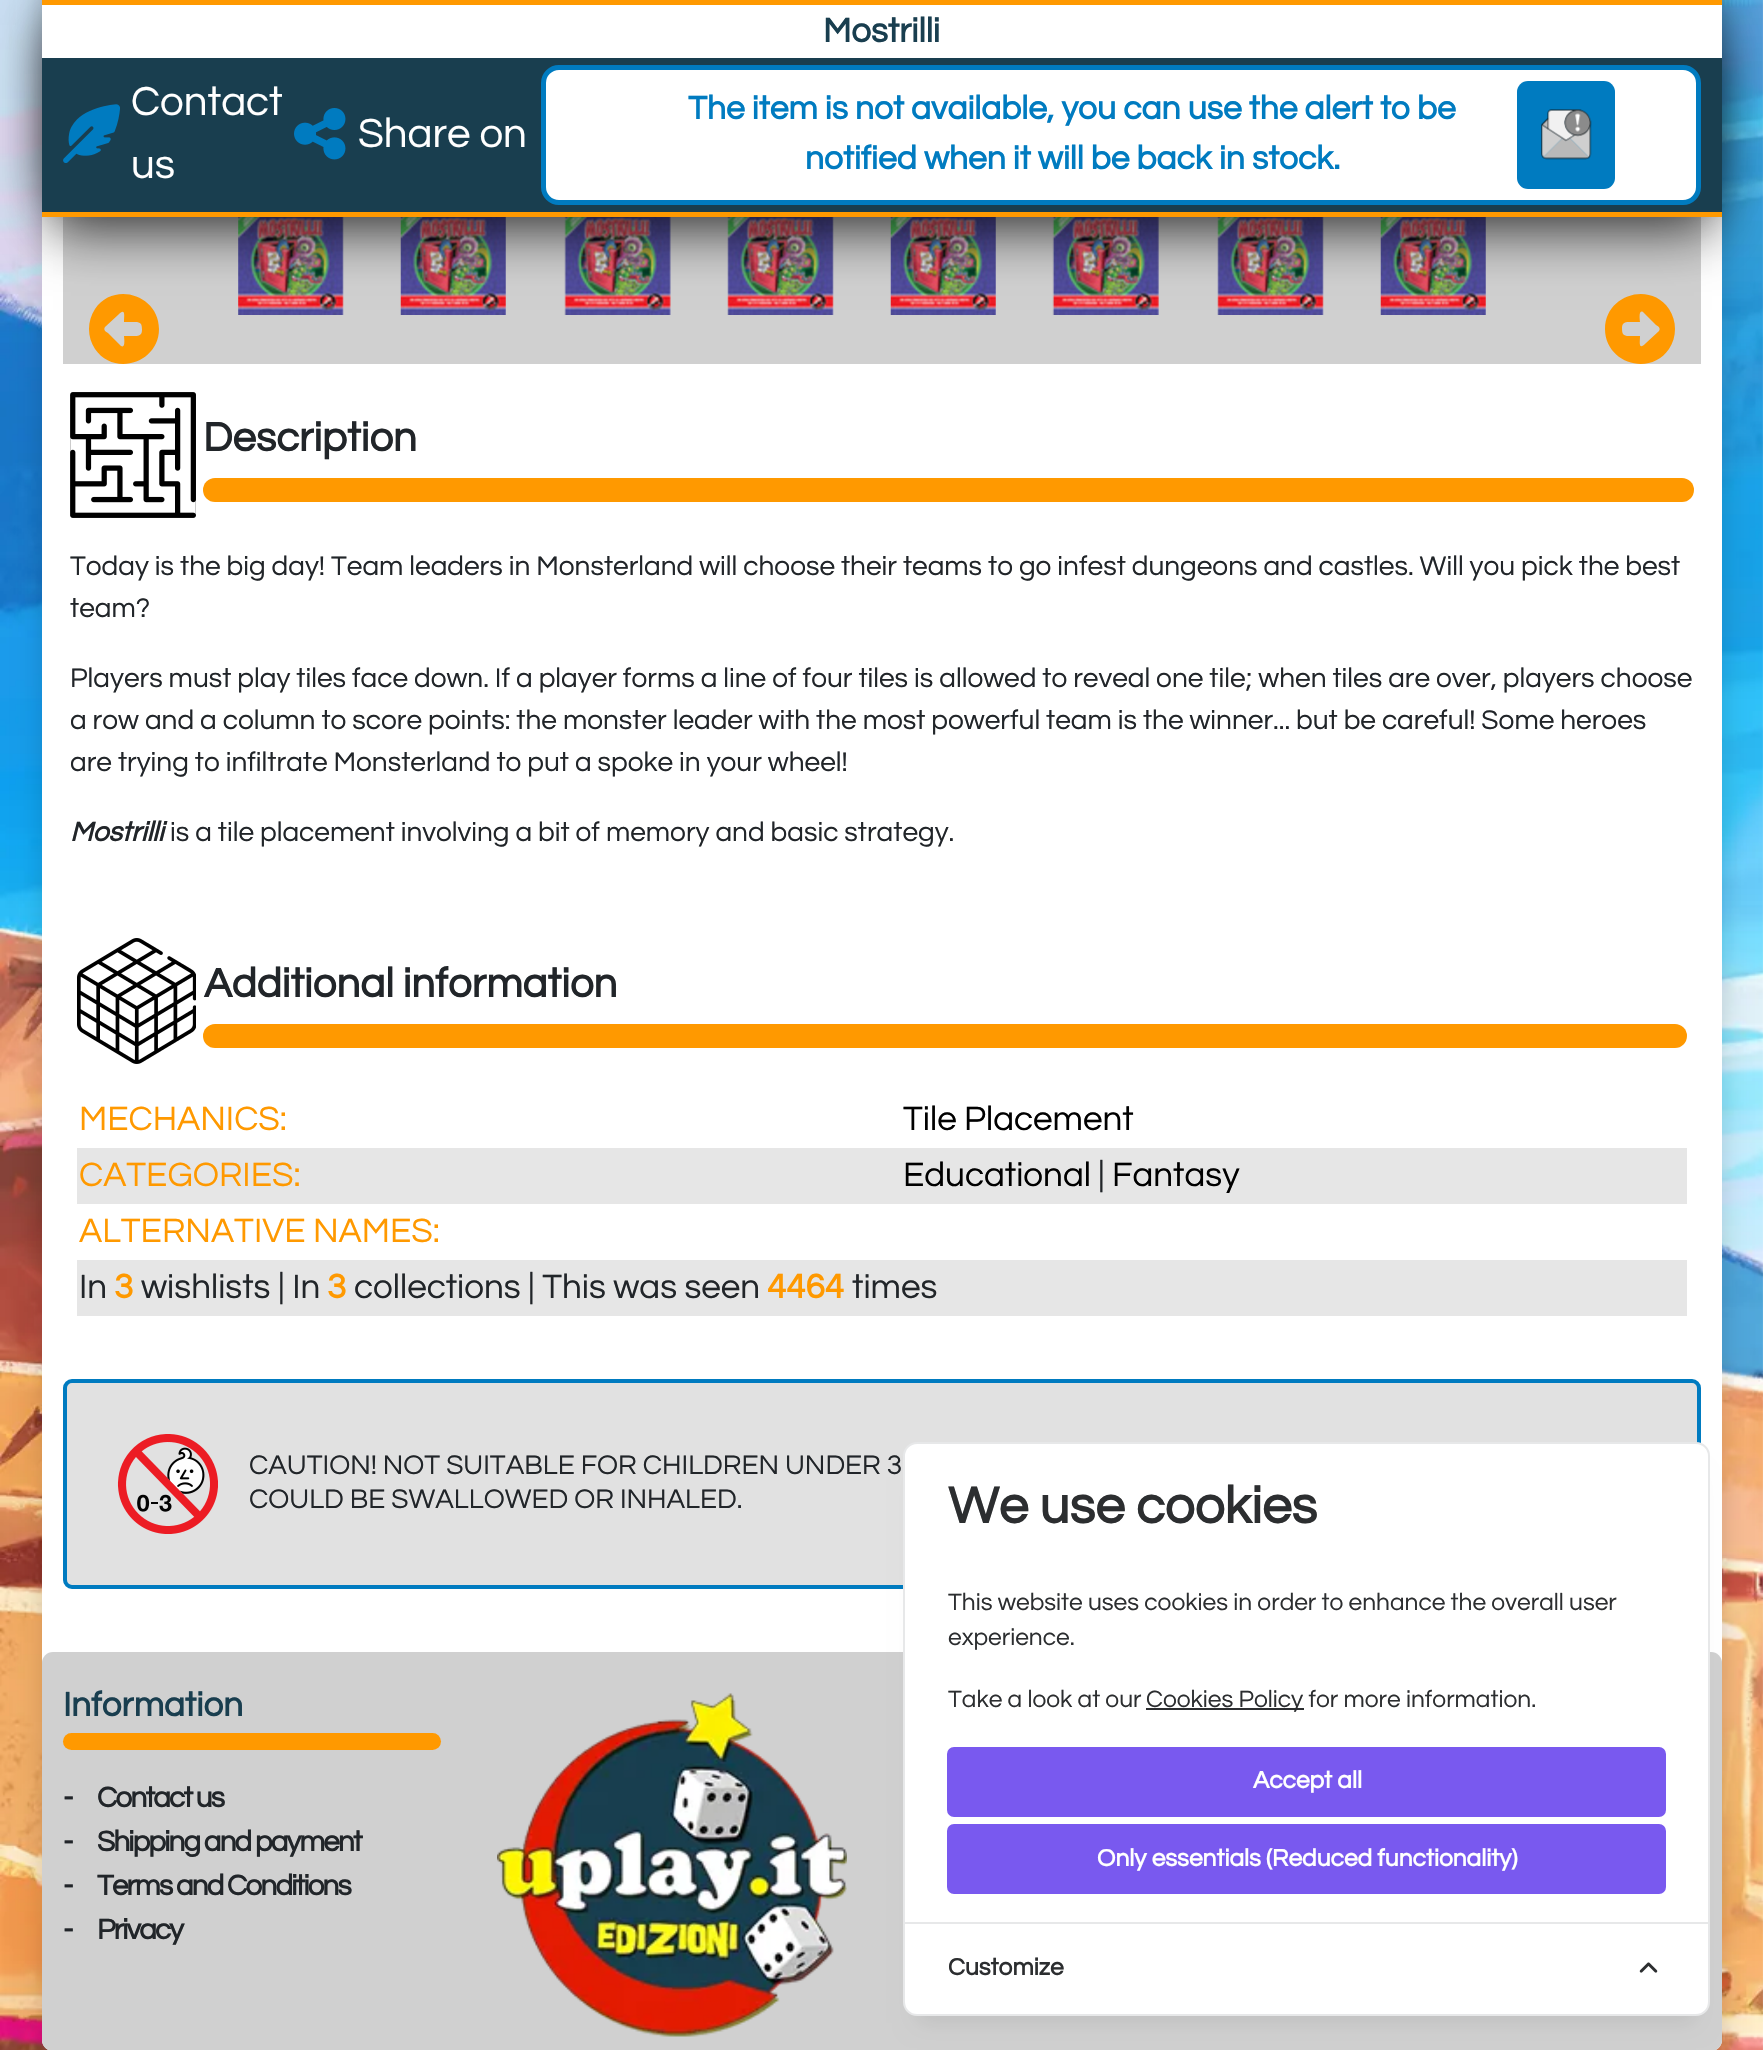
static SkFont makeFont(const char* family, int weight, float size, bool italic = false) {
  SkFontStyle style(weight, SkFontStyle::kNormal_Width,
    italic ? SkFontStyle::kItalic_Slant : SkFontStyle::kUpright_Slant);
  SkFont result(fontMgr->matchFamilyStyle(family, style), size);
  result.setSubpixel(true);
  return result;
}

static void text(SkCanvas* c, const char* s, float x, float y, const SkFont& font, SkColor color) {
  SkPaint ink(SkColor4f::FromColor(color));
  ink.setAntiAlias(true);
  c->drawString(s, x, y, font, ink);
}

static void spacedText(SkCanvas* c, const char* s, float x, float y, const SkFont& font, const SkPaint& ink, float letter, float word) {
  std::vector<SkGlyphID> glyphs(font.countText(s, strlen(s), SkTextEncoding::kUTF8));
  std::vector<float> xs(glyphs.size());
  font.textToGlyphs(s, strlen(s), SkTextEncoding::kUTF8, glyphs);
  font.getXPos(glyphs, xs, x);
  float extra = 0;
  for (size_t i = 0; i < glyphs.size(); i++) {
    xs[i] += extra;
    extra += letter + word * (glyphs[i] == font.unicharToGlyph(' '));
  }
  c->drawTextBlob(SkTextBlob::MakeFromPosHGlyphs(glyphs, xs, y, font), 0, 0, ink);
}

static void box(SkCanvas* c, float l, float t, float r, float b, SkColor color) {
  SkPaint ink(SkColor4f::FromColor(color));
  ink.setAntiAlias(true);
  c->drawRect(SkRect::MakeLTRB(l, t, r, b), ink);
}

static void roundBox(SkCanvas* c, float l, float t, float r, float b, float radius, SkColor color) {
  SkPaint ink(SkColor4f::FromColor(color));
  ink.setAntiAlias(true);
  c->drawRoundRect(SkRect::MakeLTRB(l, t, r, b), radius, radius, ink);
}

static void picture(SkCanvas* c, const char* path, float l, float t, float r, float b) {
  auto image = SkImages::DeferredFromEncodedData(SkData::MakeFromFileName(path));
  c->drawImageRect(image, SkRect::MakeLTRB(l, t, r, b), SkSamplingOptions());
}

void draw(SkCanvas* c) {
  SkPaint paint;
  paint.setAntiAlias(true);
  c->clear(0xffffffff);
  picture(c, "img_01.png", 0, 0, 1763, 2050);
  paint.setColor(0x26000000);
  paint.setMaskFilter(SkMaskFilter::MakeBlur(kNormal_SkBlurStyle, 14));
  c->drawRoundRect(SkRect::MakeLTRB(42, -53, 1722, 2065), 11, 11, paint);
  paint.setMaskFilter(nullptr);
  roundBox(c, 42, -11, 1722, 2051, 11, 0xffffffff);
  box(c, 63, 217, 1701, 364, 0xffd0d0d0);
  picture(c, "img_05.png", 238, 217, 344, 315);
  picture(c, "img_06.png", 400, 217, 506, 315);
  picture(c, "img_07.png", 564, 217, 671, 315);
  picture(c, "img_08.png", 727, 217, 834, 315);
  picture(c, "img_09.png", 890, 217, 996, 315);
  picture(c, "img_10.png", 1052, 217, 1159, 315);
  picture(c, "img_08.png", 1217, 217, 1324, 315);
  picture(c, "img_11.png", 1380, 217, 1486, 315);
  paint.setColor(0x99000000);
  paint.setMaskFilter(SkMaskFilter::MakeBlur(kNormal_SkBlurStyle, 26));
  c->drawRect(SkRect::MakeLTRB(53, 2, 1712, 198), paint);
  paint.setMaskFilter(nullptr);
  paint.setColor(0xffff9900);
  c->drawPath(SkPathBuilder().moveTo(159, 329).cubicTo(159, 295, 114, 281, 95, 309).cubicTo(91, 315, 89, 322, 89, 329).cubicTo(89, 336, 91, 343, 95, 349).cubicTo(114, 377, 159, 363, 159, 329).close().moveTo(105, 327).lineTo(118, 315).cubicTo(126, 307, 124, 316, 124, 322).lineTo(135, 322).cubicTo(141, 322, 142, 324, 142, 330).cubicTo(142, 336, 138, 336, 133, 336).lineTo(124, 336).cubicTo(124, 337, 126, 349, 121, 346).lineTo(108, 333).cubicTo(106, 332, 103, 330, 105, 327).close().detach(), paint);
  c->drawPath(SkPathBuilder().moveTo(1605, 329).cubicTo(1605, 363, 1650, 377, 1669, 349).cubicTo(1673, 343, 1675, 336, 1675, 329).cubicTo(1675, 322, 1673, 315, 1669, 309).cubicTo(1650, 281, 1605, 295, 1605, 329).close().moveTo(1659, 331).lineTo(1646, 343).cubicTo(1638, 351, 1640, 342, 1640, 336).lineTo(1629, 336).cubicTo(1623, 336, 1622, 334, 1622, 328).cubicTo(1622, 322, 1626, 322, 1631, 322).lineTo(1640, 322).cubicTo(1640, 321, 1638, 309, 1643, 312).lineTo(1656, 325).cubicTo(1658, 326, 1661, 328, 1659, 331).close().detach(), paint);
  paint.setColor(0x99000000);
  paint.setMaskFilter(SkMaskFilter::MakeBlur(kNormal_SkBlurStyle, 26));
  c->drawRect(SkRect::MakeLTRB(53, 37, 1712, 233), paint);
  paint.setMaskFilter(nullptr);
  box(c, 42, 5, 1722, 58, 0xffffffff);
  box(c, 42, 0, 1722, 5, 0xffff9900);
  box(c, 42, 212, 1722, 217, 0xffff9900);
  SkFont face1 = makeFont("Questrial", 700, 35);
  text(c, "Mostrilli", 823, 42, face1, 0xff193e4f);
  box(c, 42, 58, 1722, 212, 0xff193e4f);
  picture(c, "img_02.png", 63, 104, 120, 163);
  SkFont face2 = makeFont("Questrial", 400, 42);
  text(c, "Contact", 131, 115, face2, 0xffffffff);
  text(c, "us", 131, 178, face2, 0xffffffff);
  picture(c, "img_03.png", 294, 108, 346, 160);
  text(c, "Share on", 358, 147, face2, 0xffffffff);
  paint.setColor(0xffffffff);
  c->drawRoundRect(SkRect::MakeLTRB(543.5f, 67.5f, 1698.5f, 202.5f), 15.5f, 15.5f, paint);
  paint.setStyle(SkPaint::kStroke_Style);
  paint.setStrokeWidth(5);
  paint.setColor(0xff007bc0);
  c->drawRoundRect(SkRect::MakeLTRB(543.5f, 67.5f, 1698.5f, 202.5f), 15.5f, 15.5f, paint);
  SkFont face3 = makeFont("Questrial", 700, 33.6f);
  text(c, "The item is not available, you can use the alert to be", 688, 119, face3, 0xff007bc0);
  text(c, "notified when it will be back in stock.", 805, 169, face3, 0xff007bc0);
  roundBox(c, 1517, 81, 1615, 189, 11, 0xff007bc0);
  picture(c, "img_04.png", 1541, 109, 1592, 160);
  picture(c, "img_12.png", 70, 392, 196, 518);
  SkFont face4 = makeFont("Questrial", 700, 42);
  text(c, "Description", 203, 451, face4, 0xff212529);
  roundBox(c, 203, 478, 1694, 502, 12, 0xffff9900);
  SkFont face5 = makeFont("Questrial", 400, 28);
  text(c, "Today is the big day! Team leaders in Monsterland will choose their teams to go infest dungeons and castles. Will you pick the best", 70, 575, face5, 0xff212529);
  text(c, "team?", 70, 617, face5, 0xff212529);
  text(c, "Players must play tiles face down. If a player forms a line of four tiles is allowed to reveal one tile; when tiles are over, players choose", 70, 687, face5, 0xff212529);
  text(c, "a row and a column to score points: the monster leader with the most powerful team is the winner... but be careful! Some heroes", 70, 729, face5, 0xff212529);
  text(c, "are trying to infiltrate Monsterland to put a spoke in your wheel!", 70, 771, face5, 0xff212529);
  SkFont face6 = makeFont("Questrial", 700, 28, true);
  text(c, "Mostrilli", 70, 841, face6, 0xff212529);
  text(c, "is a tile placement involving a bit of memory and basic strategy.", 170, 841, face5, 0xff212529);
  picture(c, "img_13.png", 77, 938, 196, 1064);
  text(c, "Additional information", 204, 997, face4, 0xff212529);
  roundBox(c, 203, 1024, 1687, 1048, 12, 0xffff9900);
  SkFont face7 = makeFont("Questrial", 400, 35);
  text(c, "MECHANICS:", 79, 1130, face7, 0xffff9900);
  text(c, "Tile Placement", 903, 1130, face7, 0xff000000);
  box(c, 77, 1148, 1687, 1204, 0xffe6e6e6);
  text(c, "CATEGORIES:", 79, 1186, face7, 0xffff9900);
  text(c, "Educational", 903, 1186, face7, 0xff000000);
  text(c, "|", 1098, 1186, face7, 0xff212529);
  text(c, "Fantasy", 1112, 1186, face7, 0xff000000);
  text(c, "ALTERNATIVE NAMES:", 79, 1242, face7, 0xffff9900);
  box(c, 77, 1260, 1687, 1316, 0xffe6e6e6);
  text(c, "In", 79, 1298, face7, 0xff212529);
  text(c, "3", 114, 1298, face1, 0xffff9900);
  text(c, "wishlists", 141, 1298, face7, 0xff212529);
  text(c, "| In", 278, 1298, face7, 0xff212529);
  text(c, "3", 327, 1298, face1, 0xffff9900);
  text(c, "collections", 354, 1298, face7, 0xff212529);
  text(c, "| This was seen", 528, 1298, face7, 0xff212529);
  text(c, "4464", 767, 1298, face1, 0xffff9900);
  text(c, "times", 852, 1298, face7, 0xff212529);
  paint.setStyle(SkPaint::kFill_Style);
  paint.setColor(0xffe1e1e1);
  c->drawRoundRect(SkRect::MakeLTRB(65, 1381, 1699, 1587), 7, 7, paint);
  paint.setStyle(SkPaint::kStroke_Style);
  paint.setStrokeWidth(4);
  paint.setColor(0xff007bc0);
  c->drawRoundRect(SkRect::MakeLTRB(65, 1381, 1699, 1587), 7, 7, paint);
  picture(c, "img_14.png", 117, 1434, 218, 1534);
  text(c, "CAUTION! NOT SUITABLE FOR CHILDREN UNDER 3", 249, 1474, face5, 0xff212529);
  text(c, "COULD BE SWALLOWED OR INHALED.", 249, 1508, face5, 0xff212529);
  roundBox(c, 42, 1652, 1722, 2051, 11, 0xffd0d0d0);
  text(c, "Information", 63, 1716, face1, 0xff193e4f);
  roundBox(c, 63, 1733, 441, 1750, 8.5f, 0xffff9900);
  SkFont face8 = makeFont("Questrial", 700, 29.5f);
  paint.setStyle(SkPaint::kFill_Style);
  paint.setColor(0xff212529);
  spacedText(c, "-", 63, 1807, face8, paint, -1.75f, 0);
  spacedText(c, "Contact us", 97, 1807, face8, paint, -1.75f, 0);
  spacedText(c, "-", 63, 1851, face8, paint, -1.75f, 0);
  spacedText(c, "Shipping and payment", 97, 1851, face8, paint, -1.75f, 0);
  spacedText(c, "-", 63, 1895, face8, paint, -1.75f, 0);
  spacedText(c, "Terms and Conditions", 97, 1895, face8, paint, -1.75f, 0);
  spacedText(c, "-", 63, 1939, face8, paint, -1.75f, 0);
  spacedText(c, "Privacy", 97, 1939, face8, paint, -1.75f, 0);
  picture(c, "img_15.png", 497, 1693, 847, 2037);
  paint.setColor(0x14000000);
  paint.setMaskFilter(SkMaskFilter::MakeBlur(kNormal_SkBlurStyle, 10.5f));
  c->drawRect(SkRect::MakeLTRB(917, 1477, 1696, 2023), paint);
  paint.setMaskFilter(nullptr);
  paint.setColor(0xffffffff);
  c->drawRoundRect(SkRect::MakeLTRB(904, 1443, 1709, 2015), 13, 13, paint);
  paint.setStyle(SkPaint::kStroke_Style);
  paint.setStrokeWidth(2);
  paint.setColor(0xffe7e8e9);
  c->drawRoundRect(SkRect::MakeLTRB(904, 1443, 1709, 2015), 13, 13, paint);
  SkFont face9 = makeFont("Questrial", 700, 53);
  text(c, "We use cookies", 948, 1523, face9, 0xff2c2e30);
  SkFont face10 = makeFont("Questrial", 400, 24.5f);
  text(c, "This website uses cookies in order to enhance the overall user", 948, 1610, face10, 0xff2c2e30);
  text(c, "experience.", 948, 1645, face10, 0xff2c2e30);
  text(c, "Take a look at our", 948, 1707, face10, 0xff2c2e30);
  box(c, 1146, 1708, 1304, 1710, 0xff2c2e30);
  text(c, "Cookies Policy for more information.", 1146, 1707, face10, 0xff2c2e30);
  paint.setStyle(SkPaint::kFill_Style);
  paint.setColor(0xff7959ef);
  c->drawRoundRect(SkRect::MakeLTRB(948, 1748, 1665, 1816), 6, 6, paint);
  paint.setStyle(SkPaint::kStroke_Style);
  c->drawRoundRect(SkRect::MakeLTRB(948, 1748, 1665, 1816), 6, 6, paint);
  SkFont face11 = makeFont("Questrial", 700, 24.5f);
  text(c, "Accept all", 1253, 1788, face11, 0xffffffff);
  paint.setStyle(SkPaint::kFill_Style);
  c->drawRoundRect(SkRect::MakeLTRB(948, 1825, 1665, 1893), 6, 6, paint);
  paint.setStyle(SkPaint::kStroke_Style);
  c->drawRoundRect(SkRect::MakeLTRB(948, 1825, 1665, 1893), 6, 6, paint);
  text(c, "Only essentials (Reduced functionality)", 1097, 1866, face11, 0xffffffff);
  box(c, 905, 1922, 1708, 1924, 0xffe7e8e9);
  text(c, "Customize", 948, 1975, face11, 0xff2c2e30);
  picture(c, "img_16.png", 1639, 1962, 1658, 1973);
}
